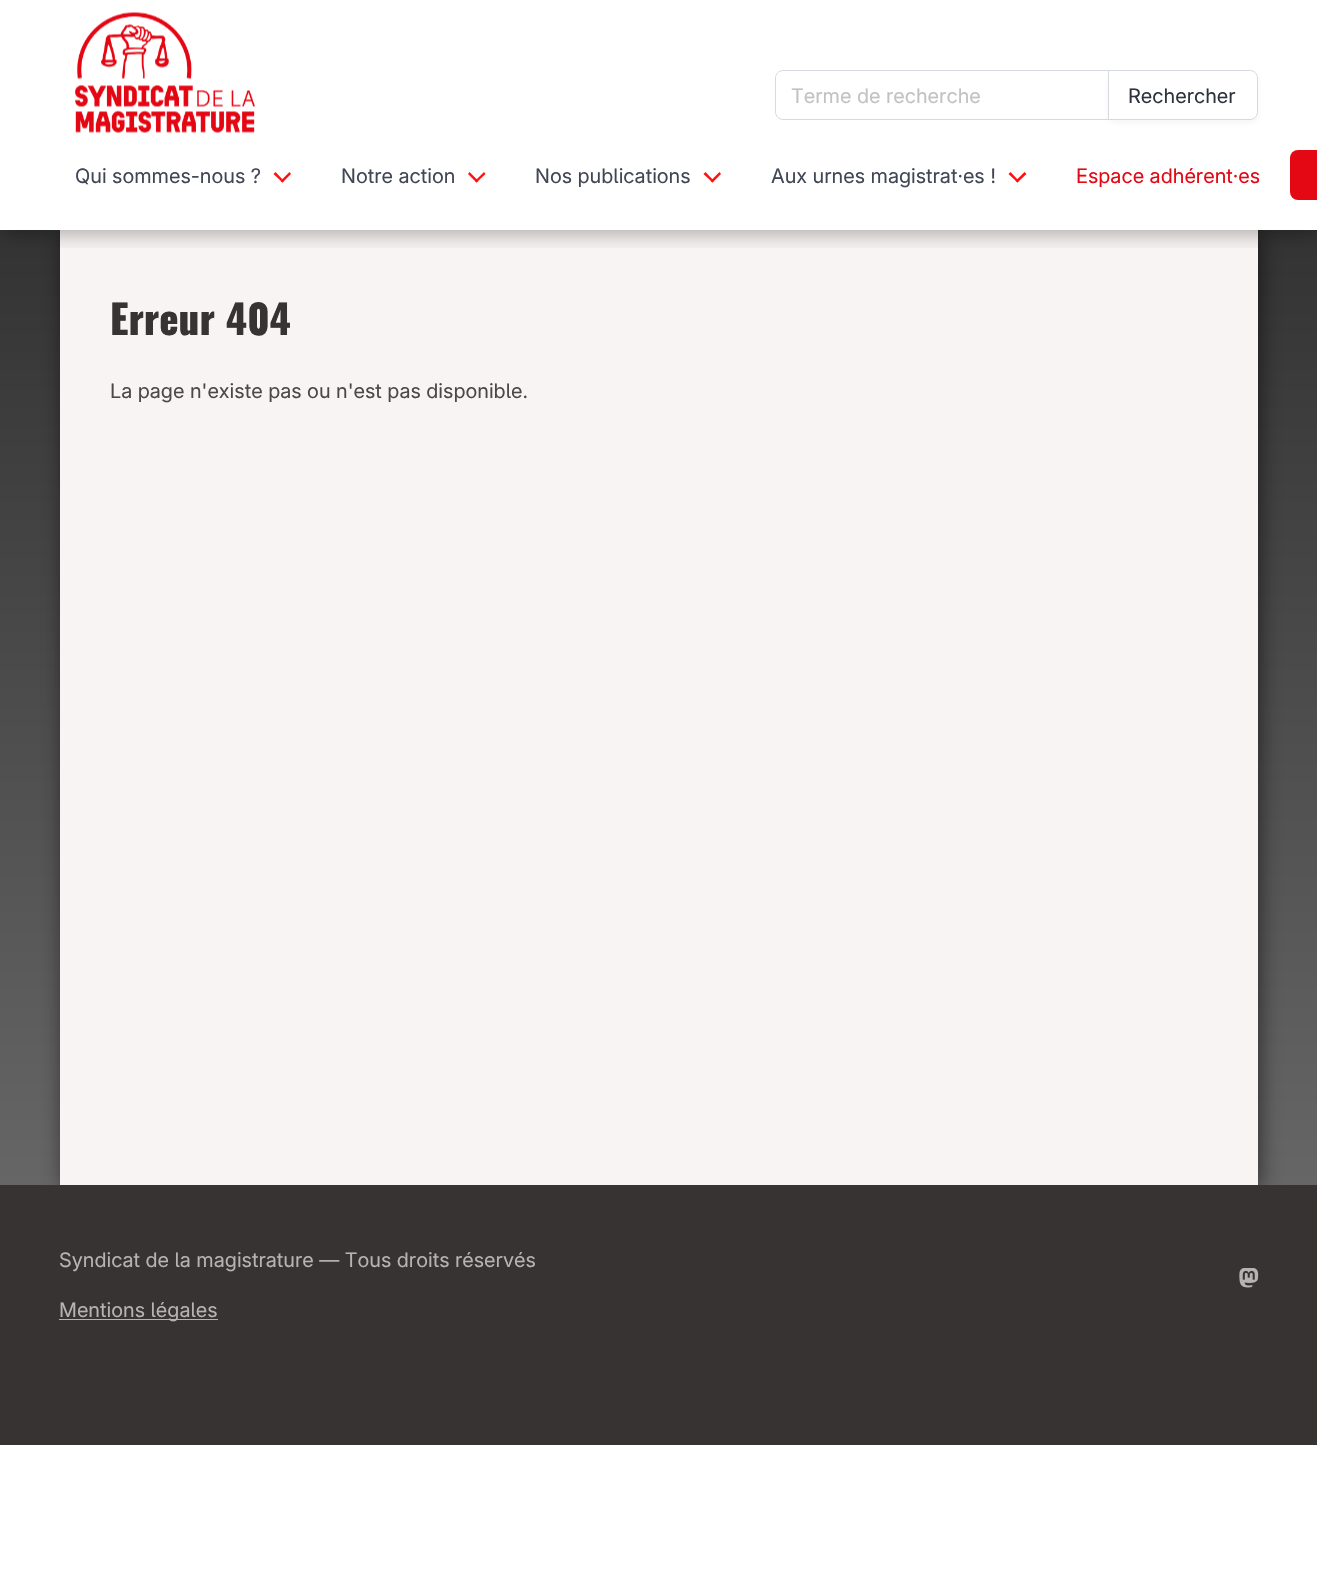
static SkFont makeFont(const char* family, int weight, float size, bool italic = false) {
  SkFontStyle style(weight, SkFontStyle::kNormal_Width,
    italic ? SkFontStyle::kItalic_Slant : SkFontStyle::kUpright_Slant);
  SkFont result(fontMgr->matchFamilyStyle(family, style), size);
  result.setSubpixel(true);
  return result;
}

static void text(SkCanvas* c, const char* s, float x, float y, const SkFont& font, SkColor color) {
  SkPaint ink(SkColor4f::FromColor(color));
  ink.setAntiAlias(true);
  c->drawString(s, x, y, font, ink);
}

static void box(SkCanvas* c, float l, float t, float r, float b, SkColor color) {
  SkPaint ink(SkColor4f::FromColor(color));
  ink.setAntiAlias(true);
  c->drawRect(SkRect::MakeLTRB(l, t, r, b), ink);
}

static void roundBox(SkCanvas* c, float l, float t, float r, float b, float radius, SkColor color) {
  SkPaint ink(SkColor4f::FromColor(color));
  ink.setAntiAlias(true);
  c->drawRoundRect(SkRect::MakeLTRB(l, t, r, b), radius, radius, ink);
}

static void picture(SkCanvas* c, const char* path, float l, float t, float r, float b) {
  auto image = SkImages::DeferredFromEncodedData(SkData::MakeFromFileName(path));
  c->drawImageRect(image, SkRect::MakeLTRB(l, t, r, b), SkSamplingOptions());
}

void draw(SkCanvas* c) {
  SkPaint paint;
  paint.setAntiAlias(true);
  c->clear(0xffffffff);
  {
    const SkColor colors[] = {0xff333333, 0xff666666};
    const float stops[] = {0, 1};
    const SkPoint ends[] = {{659, 230}, {659, 1185}};
    paint.setShader(SkGradientShader::MakeLinear(ends, colors, stops, 2, SkTileMode::kClamp));
    paint.setAlpha(255);
  }
  c->drawRect(SkRect::MakeLTRB(0, 230, 1317, 1185), paint);
  box(c, 0, 1185, 1317, 1445, 0xff383333);
  c->save();
  c->clipRect(SkRect::MakeLTRB(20, 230, 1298, 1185));
  paint.setShader(nullptr);
  paint.setColor(0x87000000);
  paint.setMaskFilter(SkMaskFilter::MakeBlur(kNormal_SkBlurStyle, 10));
  c->drawRect(SkRect::MakeLTRB(63, 233, 1260, 1188), paint);
  paint.setMaskFilter(nullptr);
  c->restore();
  box(c, 60, 230, 1258, 1185, 0xfff9f4f4);
  c->save();
  c->clipRect(SkRect::MakeLTRB(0, 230, 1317, 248));
  paint.setColor(0x54000000);
  paint.setMaskFilter(SkMaskFilter::MakeBlur(kNormal_SkBlurStyle, 10));
  c->drawRect(SkRect::MakeLTRB(3, 3, 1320, 233), paint);
  paint.setMaskFilter(nullptr);
  c->restore();
  picture(c, "img_01.png", 75, 12, 255, 133);
  paint.setStyle(SkPaint::kStroke_Style);
  paint.setStrokeWidth(1);
  paint.setColor(0xffd6d9e0);
  c->drawPath(SkPathBuilder().moveTo(783, 70.5f).lineTo(1108.5f, 70.5f).lineTo(1108.5f, 119.5f).lineTo(783, 119.5f).cubicTo(779, 119.5f, 775.5f, 116, 775.5f, 112).lineTo(775.5f, 78).cubicTo(775.5f, 74, 779, 70.5f, 783, 70.5f).close().detach(), paint);
  SkFont face1 = makeFont("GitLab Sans", 400, 20);
  text(c, "Terme de recherche", 791, 103, face1, 0xffc3c2c2);
  paint.setStyle(SkPaint::kFill_Style);
  paint.setColor(0x0d333333);
  paint.setMaskFilter(SkMaskFilter::MakeBlur(kNormal_SkBlurStyle, 2.5f));
  c->drawRoundRect(SkRect::MakeLTRB(1108, 73, 1258, 123), 8, 8, paint);
  paint.setMaskFilter(nullptr);
  paint.setColor(0xffffffff);
  c->drawPath(SkPathBuilder().moveTo(1108.5f, 70.5f).lineTo(1250, 70.5f).cubicTo(1254, 70.5f, 1257.5f, 74, 1257.5f, 78).lineTo(1257.5f, 112).cubicTo(1257.5f, 116, 1254, 119.5f, 1250, 119.5f).lineTo(1108.5f, 119.5f).close().detach(), paint);
  paint.setStyle(SkPaint::kStroke_Style);
  paint.setColor(0xffd6d9e0);
  c->drawPath(SkPathBuilder().moveTo(1108.5f, 70.5f).lineTo(1250, 70.5f).cubicTo(1254, 70.5f, 1257.5f, 74, 1257.5f, 78).lineTo(1257.5f, 112).cubicTo(1257.5f, 116, 1254, 119.5f, 1250, 119.5f).lineTo(1108.5f, 119.5f).close().detach(), paint);
  text(c, "Rechercher", 1128, 103, face1, 0xff2e333d);
  text(c, "Qui sommes-nous ?", 75, 183, face1, 0xff404654);
  paint.setStyle(SkPaint::kFill_Style);
  paint.setColor(0xffff0f0f);
  c->drawPath(SkPathBuilder().moveTo(280.5f, 181).lineTo(289.5f, 172).lineTo(291, 174).lineTo(282.5f, 182.5f).close().detach(), paint);
  c->drawPath(SkPathBuilder().moveTo(273.5f, 174).lineTo(275.5f, 172).lineTo(284, 181).lineTo(282.5f, 182.5f).close().detach(), paint);
  text(c, "Notre action", 341, 183, face1, 0xff404654);
  c->drawPath(SkPathBuilder().moveTo(475, 181).lineTo(484, 172).lineTo(485.5f, 174).lineTo(476.5f, 182.5f).close().detach(), paint);
  c->drawPath(SkPathBuilder().moveTo(468, 174).lineTo(469.5f, 172).lineTo(478.5f, 181).lineTo(476.5f, 182.5f).close().detach(), paint);
  text(c, "Nos publications", 535, 183, face1, 0xff404654);
  c->drawPath(SkPathBuilder().moveTo(710.5f, 181).lineTo(719.5f, 172).lineTo(721, 174).lineTo(712.5f, 182.5f).close().detach(), paint);
  c->drawPath(SkPathBuilder().moveTo(703.5f, 174).lineTo(705.5f, 172).lineTo(714, 181).lineTo(712.5f, 182.5f).close().detach(), paint);
  text(c, "Aux urnes magistrat·es !", 771, 183, face1, 0xff404654);
  c->drawPath(SkPathBuilder().moveTo(1015.5f, 181).lineTo(1024.5f, 172).lineTo(1026.5f, 174).lineTo(1017.5f, 182.5f).close().detach(), paint);
  c->drawPath(SkPathBuilder().moveTo(1008.5f, 174).lineTo(1010.5f, 172).lineTo(1019, 181).lineTo(1017.5f, 182.5f).close().detach(), paint);
  text(c, "Espace adhérent·es", 1076, 183, face1, 0xffe30813);
  roundBox(c, 1290, 150, 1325, 200, 8, 0xffe30813);
  SkFont face2 = makeFont("Oswald", 900, 40);
  text(c, "Erreur 404", 110, 335, face2, 0xff383333);
  text(c, "La page n'existe pas ou n'est pas disponible.", 110, 398, face1, 0xff4d4747);
  text(c, "Syndicat de la magistrature — Tous droits réservés", 59, 1267, face1, 0xffb8b2b2);
  box(c, 59, 1319, 218, 1320, 0xffb8b2b2);
  text(c, "Mentions légales", 59, 1317, face1, 0xffb8b2b2);
  picture(c, "img_02.png", 1239, 1268, 1259, 1288);
}
